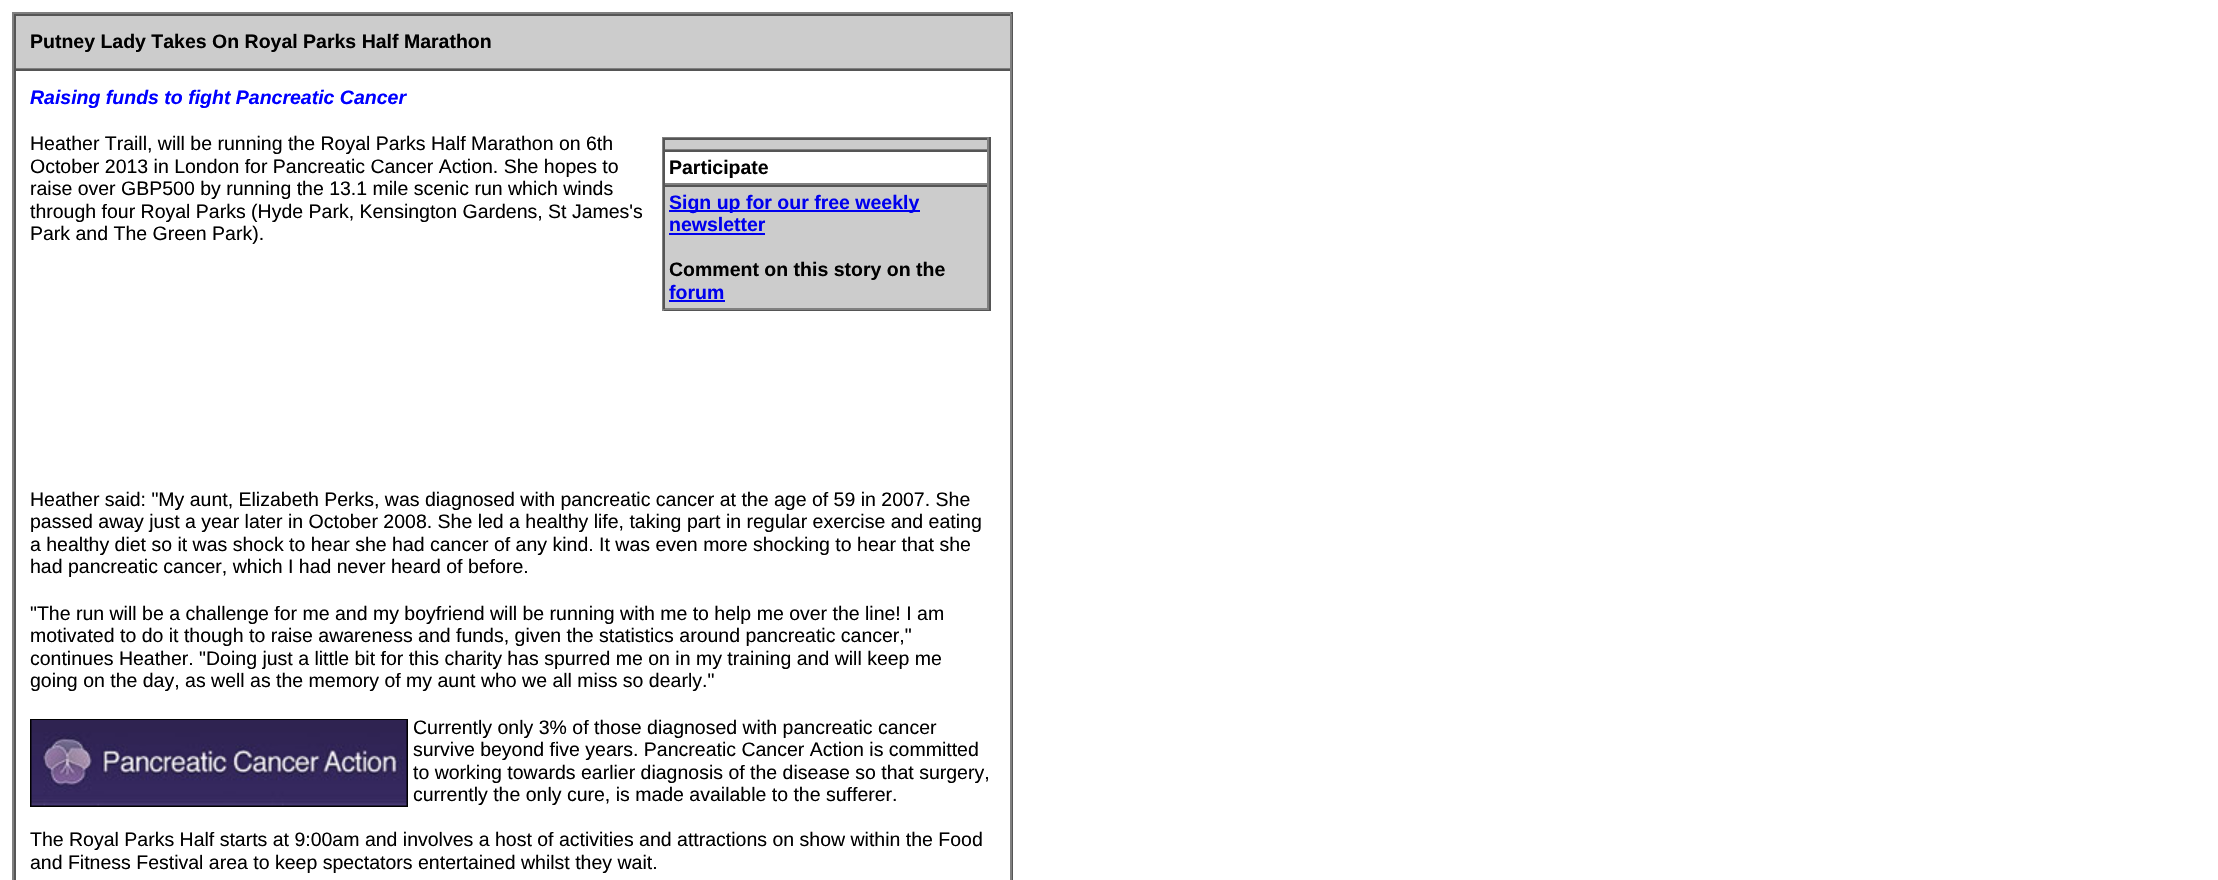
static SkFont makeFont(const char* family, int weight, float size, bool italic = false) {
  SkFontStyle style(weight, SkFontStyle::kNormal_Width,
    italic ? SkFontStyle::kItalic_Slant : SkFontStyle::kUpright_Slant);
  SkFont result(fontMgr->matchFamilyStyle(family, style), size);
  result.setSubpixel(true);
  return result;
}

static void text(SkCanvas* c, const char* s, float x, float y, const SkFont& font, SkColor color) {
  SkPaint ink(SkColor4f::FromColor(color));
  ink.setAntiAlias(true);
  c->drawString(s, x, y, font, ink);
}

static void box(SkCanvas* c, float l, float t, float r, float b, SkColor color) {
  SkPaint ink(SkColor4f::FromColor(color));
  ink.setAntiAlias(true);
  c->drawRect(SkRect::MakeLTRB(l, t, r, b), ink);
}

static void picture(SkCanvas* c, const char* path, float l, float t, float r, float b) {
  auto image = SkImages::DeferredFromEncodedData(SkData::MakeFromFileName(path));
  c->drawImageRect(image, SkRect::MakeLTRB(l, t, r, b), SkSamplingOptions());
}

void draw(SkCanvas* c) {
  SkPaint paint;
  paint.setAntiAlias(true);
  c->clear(0xffffffff);
  box(c, 12, 12, 1013, 14, 0xff808080);
  box(c, 1011, 12, 1013, 880, 0xff555555);
  box(c, 12, 12, 14, 880, 0xff808080);
  box(c, 16, 16, 1010, 68, 0xffcccccc);
  box(c, 14, 14, 1011, 16, 0xff555555);
  box(c, 1010, 14, 1012, 69, 0xff808080);
  box(c, 14, 68, 1011, 69, 0xff808080);
  box(c, 14, 14, 16, 69, 0xff555555);
  SkFont face1 = makeFont("Liberation Sans", 700, 19.5f);
  text(c, "Putney Lady Takes On Royal Parks Half Marathon", 30, 48, face1, 0xff000000);
  box(c, 14, 69, 1011, 71, 0xff555555);
  box(c, 1010, 69, 1012, 880, 0xff808080);
  box(c, 14, 69, 16, 880, 0xff555555);
  SkFont face2 = makeFont("Liberation Sans", 700, 19.5f, true);
  text(c, "Raising funds to fight Pancreatic Cancer", 30, 104, face2, 0xff0000ff);
  SkFont face3 = makeFont("Liberation Sans", 400, 19.5f);
  text(c, "Heather Traill, will be running the Royal Parks Half Marathon on 6th", 30, 150, face3, 0xff000000);
  text(c, "October 2013 in London for Pancreatic Cancer Action. She hopes to", 30, 173, face3, 0xff000000);
  text(c, "raise over GBP500 by running the 13.1 mile scenic run which winds", 30, 195, face3, 0xff000000);
  text(c, "through four Royal Parks (Hyde Park, Kensington Gardens, St James's", 30, 218, face3, 0xff000000);
  text(c, "Park and The Green Park).", 30, 240, face3, 0xff000000);
  box(c, 662, 137, 990, 138, 0xff808080);
  box(c, 989, 137, 991, 311, 0xff555555);
  box(c, 662, 309, 990, 311, 0xff555555);
  box(c, 662, 137, 664, 311, 0xff808080);
  box(c, 665, 140, 987, 149, 0xffcccccc);
  box(c, 663, 138, 989, 140, 0xff555555);
  box(c, 987, 138, 989, 150, 0xff808080);
  box(c, 663, 149, 989, 150, 0xff808080);
  box(c, 663, 138, 665, 150, 0xff555555);
  box(c, 663, 150, 989, 152, 0xff555555);
  box(c, 987, 150, 989, 185, 0xff808080);
  box(c, 663, 183, 989, 185, 0xff808080);
  box(c, 663, 150, 665, 185, 0xff555555);
  text(c, "Participate", 669, 174, face1, 0xff000000);
  box(c, 665, 187, 987, 308, 0xffcccccc);
  box(c, 663, 185, 989, 187, 0xff555555);
  box(c, 987, 185, 989, 309, 0xff808080);
  box(c, 663, 308, 989, 310, 0xff808080);
  box(c, 663, 185, 665, 309, 0xff555555);
  box(c, 669, 210, 920, 212, 0xff0000ee);
  text(c, "Sign up for our free weekly", 669, 209, face1, 0xff0000ee);
  text(c, "newsletter", 669, 231, face1, 0xff0000ee);
  box(c, 669, 233, 765, 235, 0xff0000ee);
  text(c, "Comment on this story on the", 669, 276, face1, 0xff000000);
  text(c, "forum", 669, 299, face1, 0xff0000ee);
  box(c, 669, 300, 725, 302, 0xff0000ee);
  text(c, "Heather said: \"My aunt, Elizabeth Perks, was diagnosed with pancreatic cancer at the age of 59 in 2007. She", 30, 506, face3, 0xff000000);
  text(c, "passed away just a year later in October 2008. She led a healthy life, taking part in regular exercise and eating", 30, 528, face3, 0xff000000);
  text(c, "a healthy diet so it was shock to hear she had cancer of any kind. It was even more shocking to hear that she", 30, 551, face3, 0xff000000);
  text(c, "had pancreatic cancer, which I had never heard of before.", 30, 573, face3, 0xff000000);
  text(c, "\"The run will be a challenge for me and my boyfriend will be running with me to help me over the line! I am", 30, 620, face3, 0xff000000);
  text(c, "motivated to do it though to raise awareness and funds, given the statistics around pancreatic cancer,\"", 30, 642, face3, 0xff000000);
  text(c, "continues Heather. \"Doing just a little bit for this charity has spurred me on in my training and will keep me", 30, 665, face3, 0xff000000);
  text(c, "going on the day, as well as the memory of my aunt who we all miss so dearly.\"", 30, 687, face3, 0xff000000);
  paint.setStyle(SkPaint::kStroke_Style);
  paint.setStrokeWidth(2);
  paint.setColor(0xff000000);
  c->drawRect(SkRect::MakeLTRB(31, 720, 407, 806), paint);
  picture(c, "img_01.png", 31, 720, 407, 806);
  text(c, "Currently only 3% of those diagnosed with pancreatic cancer", 413, 734, face3, 0xff000000);
  text(c, "survive beyond five years. Pancreatic Cancer Action is committed", 413, 756, face3, 0xff000000);
  text(c, "to working towards earlier diagnosis of the disease so that surgery,", 413, 779, face3, 0xff000000);
  text(c, "currently the only cure, is made available to the sufferer.", 413, 801, face3, 0xff000000);
  text(c, "The Royal Parks Half starts at 9:00am and involves a host of activities and attractions on show within the Food", 30, 846, face3, 0xff000000);
  text(c, "and Fitness Festival area to keep spectators entertained whilst they wait.", 30, 869, face3, 0xff000000);
}
